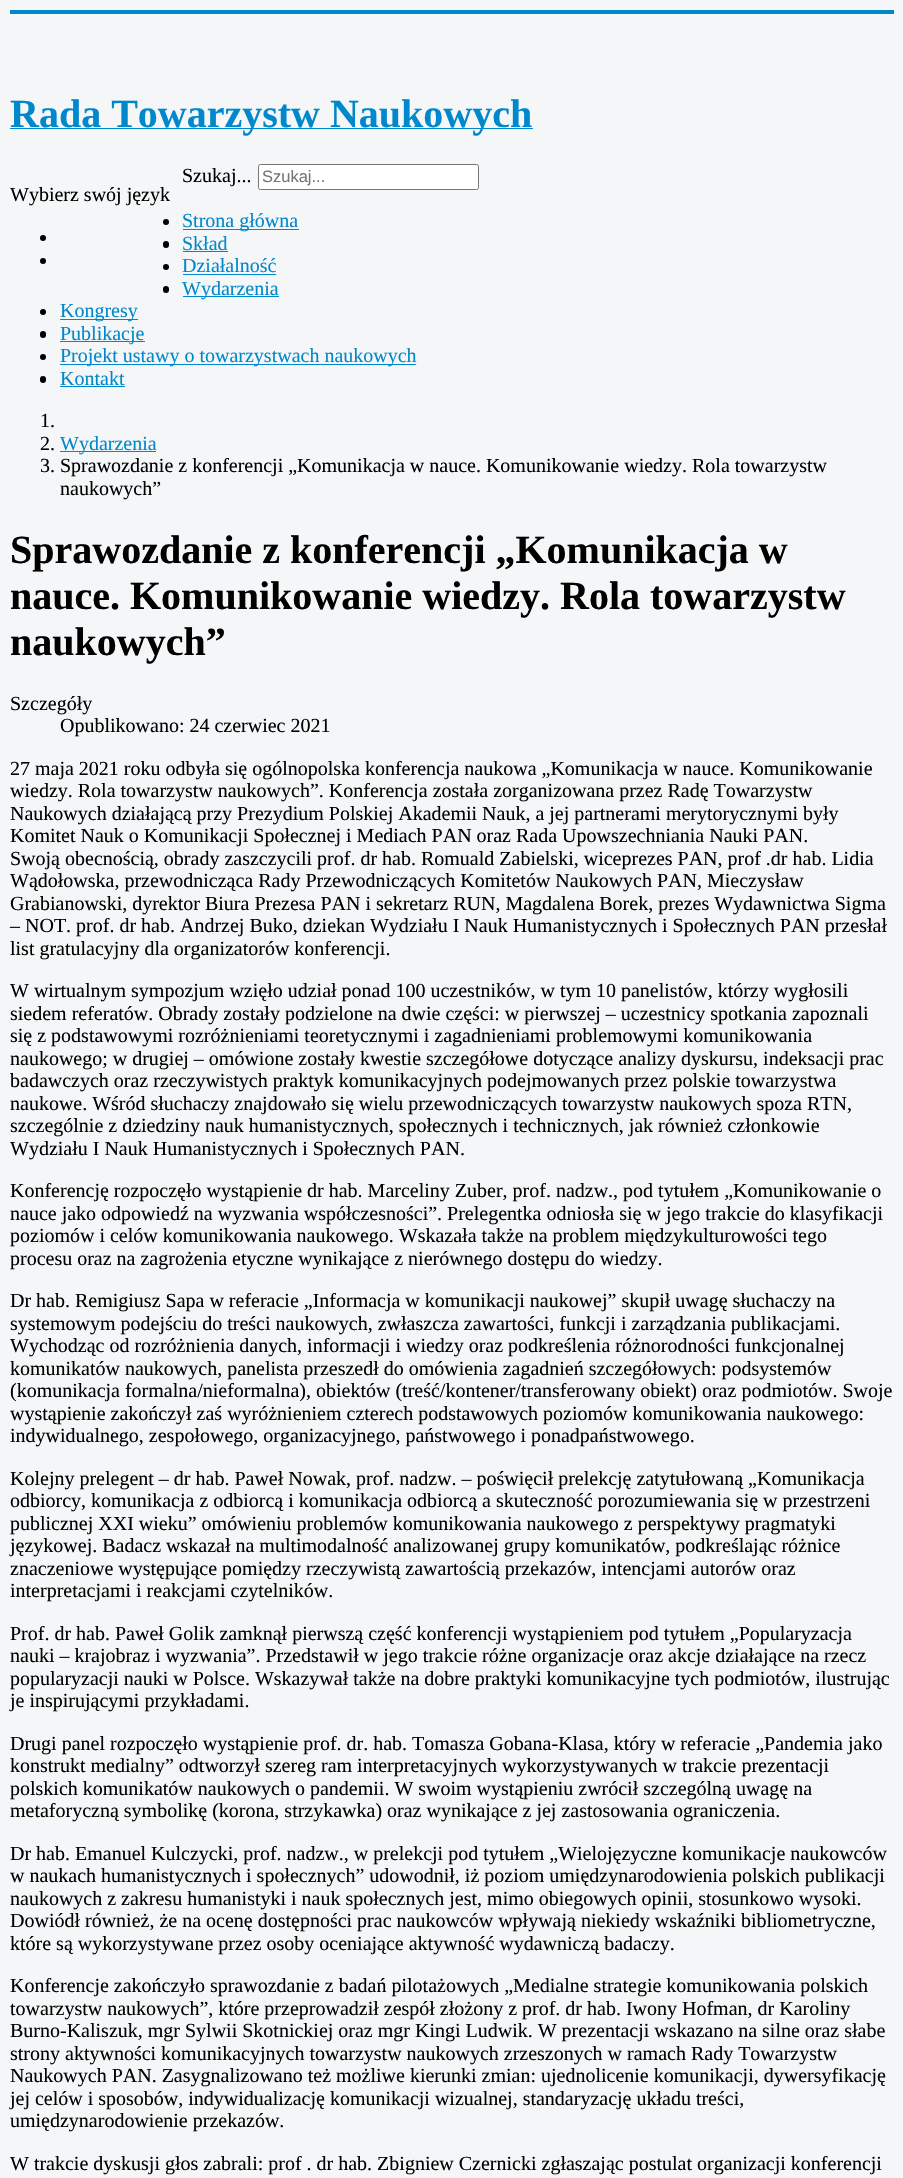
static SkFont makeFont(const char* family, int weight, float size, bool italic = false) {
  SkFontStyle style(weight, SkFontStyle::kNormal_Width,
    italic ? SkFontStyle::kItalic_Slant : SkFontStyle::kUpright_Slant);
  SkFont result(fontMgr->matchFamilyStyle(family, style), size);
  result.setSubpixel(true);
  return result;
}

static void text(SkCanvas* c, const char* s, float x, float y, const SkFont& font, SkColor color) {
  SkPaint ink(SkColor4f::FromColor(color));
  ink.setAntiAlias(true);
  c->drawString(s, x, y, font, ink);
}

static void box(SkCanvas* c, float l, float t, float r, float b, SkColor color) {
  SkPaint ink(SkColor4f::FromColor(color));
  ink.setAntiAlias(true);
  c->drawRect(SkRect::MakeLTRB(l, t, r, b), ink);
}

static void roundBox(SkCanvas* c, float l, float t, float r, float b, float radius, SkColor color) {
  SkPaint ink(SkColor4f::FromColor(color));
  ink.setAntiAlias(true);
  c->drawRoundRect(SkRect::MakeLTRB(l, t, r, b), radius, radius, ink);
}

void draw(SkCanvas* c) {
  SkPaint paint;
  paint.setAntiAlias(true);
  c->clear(0xfff4f6f7);
  box(c, 10, 10, 894, 14, 0xff0088cc);
  box(c, 10, 128, 533, 129, 0xff0088cc);
  SkFont face1 = makeFont("Liberation Serif", 700, 40);
  text(c, "Rada Towarzystw Naukowych", 10, 127, face1, 0xff0088cc);
  SkFont face2 = makeFont("Liberation Serif", 400, 20);
  text(c, "Szukaj...", 182, 182, face2, 0xff000000);
  paint.setColor(0xffffffff);
  c->drawRoundRect(SkRect::MakeLTRB(258.5f, 164.5f, 478.5f, 189.5f), 2, 2, paint);
  paint.setStyle(SkPaint::kStroke_Style);
  paint.setStrokeWidth(1);
  paint.setColor(0xff767676);
  c->drawRoundRect(SkRect::MakeLTRB(258.5f, 164.5f, 478.5f, 189.5f), 2, 2, paint);
  SkFont face3 = makeFont("Liberation Sans", 400, 16.5f);
  text(c, "Szukaj...", 262, 182, face3, 0xff757575);
  text(c, "Wybierz swój język", 10, 201, face2, 0xff000000);
  paint.setStyle(SkPaint::kFill_Style);
  paint.setColor(0xff000000);
  c->drawCircle(43, 238, 3, paint);
  c->drawCircle(43, 261, 3, paint);
  c->drawCircle(166, 222, 3, paint);
  box(c, 183, 229, 299, 230, 0xff0088cc);
  text(c, "Strona główna", 182, 227, face2, 0xff0088cc);
  roundBox(c, 163, 241, 169, 248, 3, 0xff000000);
  text(c, "Skład", 182, 250, face2, 0xff0088cc);
  box(c, 183, 251, 228, 252, 0xff0088cc);
  c->drawCircle(166, 267, 3, paint);
  text(c, "Działalność", 182, 272, face2, 0xff0088cc);
  box(c, 183, 274, 276, 275, 0xff0088cc);
  roundBox(c, 163, 286, 169, 293, 3, 0xff000000);
  box(c, 183, 296, 279, 297, 0xff0088cc);
  text(c, "Wydarzenia", 182, 295, face2, 0xff0088cc);
  c->drawCircle(43, 312, 3, paint);
  box(c, 60, 319, 138, 320, 0xff0088cc);
  text(c, "Kongresy", 60, 317, face2, 0xff0088cc);
  roundBox(c, 40, 331, 46, 338, 3, 0xff000000);
  box(c, 60, 341, 145, 342, 0xff0088cc);
  text(c, "Publikacje", 60, 340, face2, 0xff0088cc);
  c->drawCircle(43, 357, 3, paint);
  box(c, 60, 364, 416, 365, 0xff0088cc);
  text(c, "Projekt ustawy o towarzystwach naukowych", 60, 362, face2, 0xff0088cc);
  roundBox(c, 40, 376, 46, 383, 3, 0xff000000);
  text(c, "Kontakt", 60, 385, face2, 0xff0088cc);
  box(c, 60, 386, 125, 387, 0xff0088cc);
  text(c, "1.", 40, 427, face2, 0xff000000);
  text(c, "2.", 40, 450, face2, 0xff000000);
  box(c, 60, 451, 156, 452, 0xff0088cc);
  text(c, "Wydarzenia", 60, 450, face2, 0xff0088cc);
  text(c, "3. Sprawozdanie z konferencji „Komunikacja w nauce. Komunikowanie wiedzy. Rola towarzystw", 40, 472, face2, 0xff000000);
  text(c, "naukowych”", 60, 495, face2, 0xff000000);
  text(c, "Sprawozdanie z konferencji „Komunikacja w", 10, 563, face1, 0xff000000);
  text(c, "nauce. Komunikowanie wiedzy. Rola towarzystw", 10, 609, face1, 0xff000000);
  text(c, "naukowych”", 10, 655, face1, 0xff000000);
  text(c, "Szczegóły", 10, 710, face2, 0xff000000);
  text(c, "Opublikowano: 24 czerwiec 2021", 60, 732, face2, 0xff000000);
  text(c, "27 maja 2021 roku odbyła się ogólnopolska konferencja naukowa „Komunikacja w nauce. Komunikowanie", 10, 775, face2, 0xff000000);
  text(c, "wiedzy. Rola towarzystw naukowych”. Konferencja została zorganizowana przez Radę Towarzystw", 10, 797, face2, 0xff000000);
  text(c, "Naukowych działającą przy Prezydium Polskiej Akademii Nauk, a jej partnerami merytorycznymi były", 10, 820, face2, 0xff000000);
  text(c, "Komitet Nauk o Komunikacji Społecznej i Mediach PAN oraz Rada Upowszechniania Nauki PAN.", 10, 842, face2, 0xff000000);
  text(c, "Swoją obecnością, obrady zaszczycili prof. dr hab. Romuald Zabielski, wiceprezes PAN, prof .dr hab. Lidia", 10, 865, face2, 0xff000000);
  text(c, "Wądołowska, przewodnicząca Rady Przewodniczących Komitetów Naukowych PAN, Mieczysław", 10, 887, face2, 0xff000000);
  text(c, "Grabianowski, dyrektor Biura Prezesa PAN i sekretarz RUN, Magdalena Borek, prezes Wydawnictwa Sigma", 10, 910, face2, 0xff000000);
  text(c, "– NOT. prof. dr hab. Andrzej Buko, dziekan Wydziału I Nauk Humanistycznych i Społecznych PAN przesłał", 10, 932, face2, 0xff000000);
  text(c, "list gratulacyjny dla organizatorów konferencji.", 10, 955, face2, 0xff000000);
  text(c, "W wirtualnym sympozjum wzięło udział ponad 100 uczestników, w tym 10 panelistów, którzy wygłosili", 10, 997, face2, 0xff000000);
  text(c, "siedem referatów. Obrady zostały podzielone na dwie części: w pierwszej – uczestnicy spotkania zapoznali", 10, 1020, face2, 0xff000000);
  text(c, "się z podstawowymi rozróżnieniami teoretycznymi i zagadnieniami problemowymi komunikowania", 10, 1042, face2, 0xff000000);
  text(c, "naukowego; w drugiej – omówione zostały kwestie szczegółowe dotyczące analizy dyskursu, indeksacji prac", 10, 1065, face2, 0xff000000);
  text(c, "badawczych oraz rzeczywistych praktyk komunikacyjnych podejmowanych przez polskie towarzystwa", 10, 1087, face2, 0xff000000);
  text(c, "naukowe. Wśród słuchaczy znajdowało się wielu przewodniczących towarzystw naukowych spoza RTN,", 10, 1110, face2, 0xff000000);
  text(c, "szczególnie z dziedziny nauk humanistycznych, społecznych i technicznych, jak również członkowie", 10, 1132, face2, 0xff000000);
  text(c, "Wydziału I Nauk Humanistycznych i Społecznych PAN.", 10, 1155, face2, 0xff000000);
  text(c, "Konferencję rozpoczęło wystąpienie dr hab. Marceliny Zuber, prof. nadzw., pod tytułem „Komunikowanie o", 10, 1197, face2, 0xff000000);
  text(c, "nauce jako odpowiedź na wyzwania współczesności”. Prelegentka odniosła się w jego trakcie do klasyfikacji", 10, 1220, face2, 0xff000000);
  text(c, "poziomów i celów komunikowania naukowego. Wskazała także na problem międzykulturowości tego", 10, 1242, face2, 0xff000000);
  text(c, "procesu oraz na zagrożenia etyczne wynikające z nierównego dostępu do wiedzy.", 10, 1265, face2, 0xff000000);
  text(c, "Dr hab. Remigiusz Sapa w referacie „Informacja w komunikacji naukowej” skupił uwagę słuchaczy na", 10, 1307, face2, 0xff000000);
  text(c, "systemowym podejściu do treści naukowych, zwłaszcza zawartości, funkcji i zarządzania publikacjami.", 10, 1330, face2, 0xff000000);
  text(c, "Wychodząc od rozróżnienia danych, informacji i wiedzy oraz podkreślenia różnorodności funkcjonalnej", 10, 1352, face2, 0xff000000);
  text(c, "komunikatów naukowych, panelista przeszedł do omówienia zagadnień szczegółowych: podsystemów", 10, 1375, face2, 0xff000000);
  text(c, "(komunikacja formalna/nieformalna), obiektów (treść/kontener/transferowany obiekt) oraz podmiotów. Swoje", 10, 1397, face2, 0xff000000);
  text(c, "wystąpienie zakończył zaś wyróżnieniem czterech podstawowych poziomów komunikowania naukowego:", 10, 1420, face2, 0xff000000);
  text(c, "indywidualnego, zespołowego, organizacyjnego, państwowego i ponadpaństwowego.", 10, 1442, face2, 0xff000000);
  text(c, "Kolejny prelegent – dr hab. Paweł Nowak, prof. nadzw. – poświęcił prelekcję zatytułowaną „Komunikacja", 10, 1485, face2, 0xff000000);
  text(c, "odbiorcy, komunikacja z odbiorcą i komunikacja odbiorcą a skuteczność porozumiewania się w przestrzeni", 10, 1507, face2, 0xff000000);
  text(c, "publicznej XXI wieku” omówieniu problemów komunikowania naukowego z perspektywy pragmatyki", 10, 1530, face2, 0xff000000);
  text(c, "językowej. Badacz wskazał na multimodalność analizowanej grupy komunikatów, podkreślając różnice", 10, 1552, face2, 0xff000000);
  text(c, "znaczeniowe występujące pomiędzy rzeczywistą zawartością przekazów, intencjami autorów oraz", 10, 1575, face2, 0xff000000);
  text(c, "interpretacjami i reakcjami czytelników.", 10, 1597, face2, 0xff000000);
  text(c, "Prof. dr hab. Paweł Golik zamknął pierwszą część konferencji wystąpieniem pod tytułem „Popularyzacja", 10, 1640, face2, 0xff000000);
  text(c, "nauki – krajobraz i wyzwania”. Przedstawił w jego trakcie różne organizacje oraz akcje działające na rzecz", 10, 1662, face2, 0xff000000);
  text(c, "popularyzacji nauki w Polsce. Wskazywał także na dobre praktyki komunikacyjne tych podmiotów, ilustrując", 10, 1685, face2, 0xff000000);
  text(c, "je inspirującymi przykładami.", 10, 1707, face2, 0xff000000);
  text(c, "Drugi panel rozpoczęło wystąpienie prof. dr. hab. Tomasza Gobana-Klasa, który w referacie „Pandemia jako", 10, 1750, face2, 0xff000000);
  text(c, "konstrukt medialny” odtworzył szereg ram interpretacyjnych wykorzystywanych w trakcie prezentacji", 10, 1772, face2, 0xff000000);
  text(c, "polskich komunikatów naukowych o pandemii. W swoim wystąpieniu zwrócił szczególną uwagę na", 10, 1795, face2, 0xff000000);
  text(c, "metaforyczną symbolikę (korona, strzykawka) oraz wynikające z jej zastosowania ograniczenia.", 10, 1817, face2, 0xff000000);
  text(c, "Dr hab. Emanuel Kulczycki, prof. nadzw., w prelekcji pod tytułem „Wielojęzyczne komunikacje naukowców", 10, 1860, face2, 0xff000000);
  text(c, "w naukach humanistycznych i społecznych” udowodnił, iż poziom umiędzynarodowienia polskich publikacji", 10, 1882, face2, 0xff000000);
  text(c, "naukowych z zakresu humanistyki i nauk społecznych jest, mimo obiegowych opinii, stosunkowo wysoki.", 10, 1905, face2, 0xff000000);
  text(c, "Dowiódł również, że na ocenę dostępności prac naukowców wpływają niekiedy wskaźniki bibliometryczne,", 10, 1927, face2, 0xff000000);
  text(c, "które są wykorzystywane przez osoby oceniające aktywność wydawniczą badaczy.", 10, 1950, face2, 0xff000000);
  text(c, "Konferencje zakończyło sprawozdanie z badań pilotażowych „Medialne strategie komunikowania polskich", 10, 1992, face2, 0xff000000);
  text(c, "towarzystw naukowych”, które przeprowadził zespół złożony z prof. dr hab. Iwony Hofman, dr Karoliny", 10, 2015, face2, 0xff000000);
  text(c, "Burno-Kaliszuk, mgr Sylwii Skotnickiej oraz mgr Kingi Ludwik. W prezentacji wskazano na silne oraz słabe", 10, 2037, face2, 0xff000000);
  text(c, "strony aktywności komunikacyjnych towarzystw naukowych zrzeszonych w ramach Rady Towarzystw", 10, 2060, face2, 0xff000000);
  text(c, "Naukowych PAN. Zasygnalizowano też możliwe kierunki zmian: ujednolicenie komunikacji, dywersyfikację", 10, 2082, face2, 0xff000000);
  text(c, "jej celów i sposobów, indywidualizację komunikacji wizualnej, standaryzację układu treści,", 10, 2105, face2, 0xff000000);
  text(c, "umiędzynarodowienie przekazów.", 10, 2127, face2, 0xff000000);
  text(c, "W trakcie dyskusji głos zabrali: prof . dr hab. Zbigniew Czernicki zgłaszając postulat organizacji konferencji", 10, 2170, face2, 0xff000000);
}
